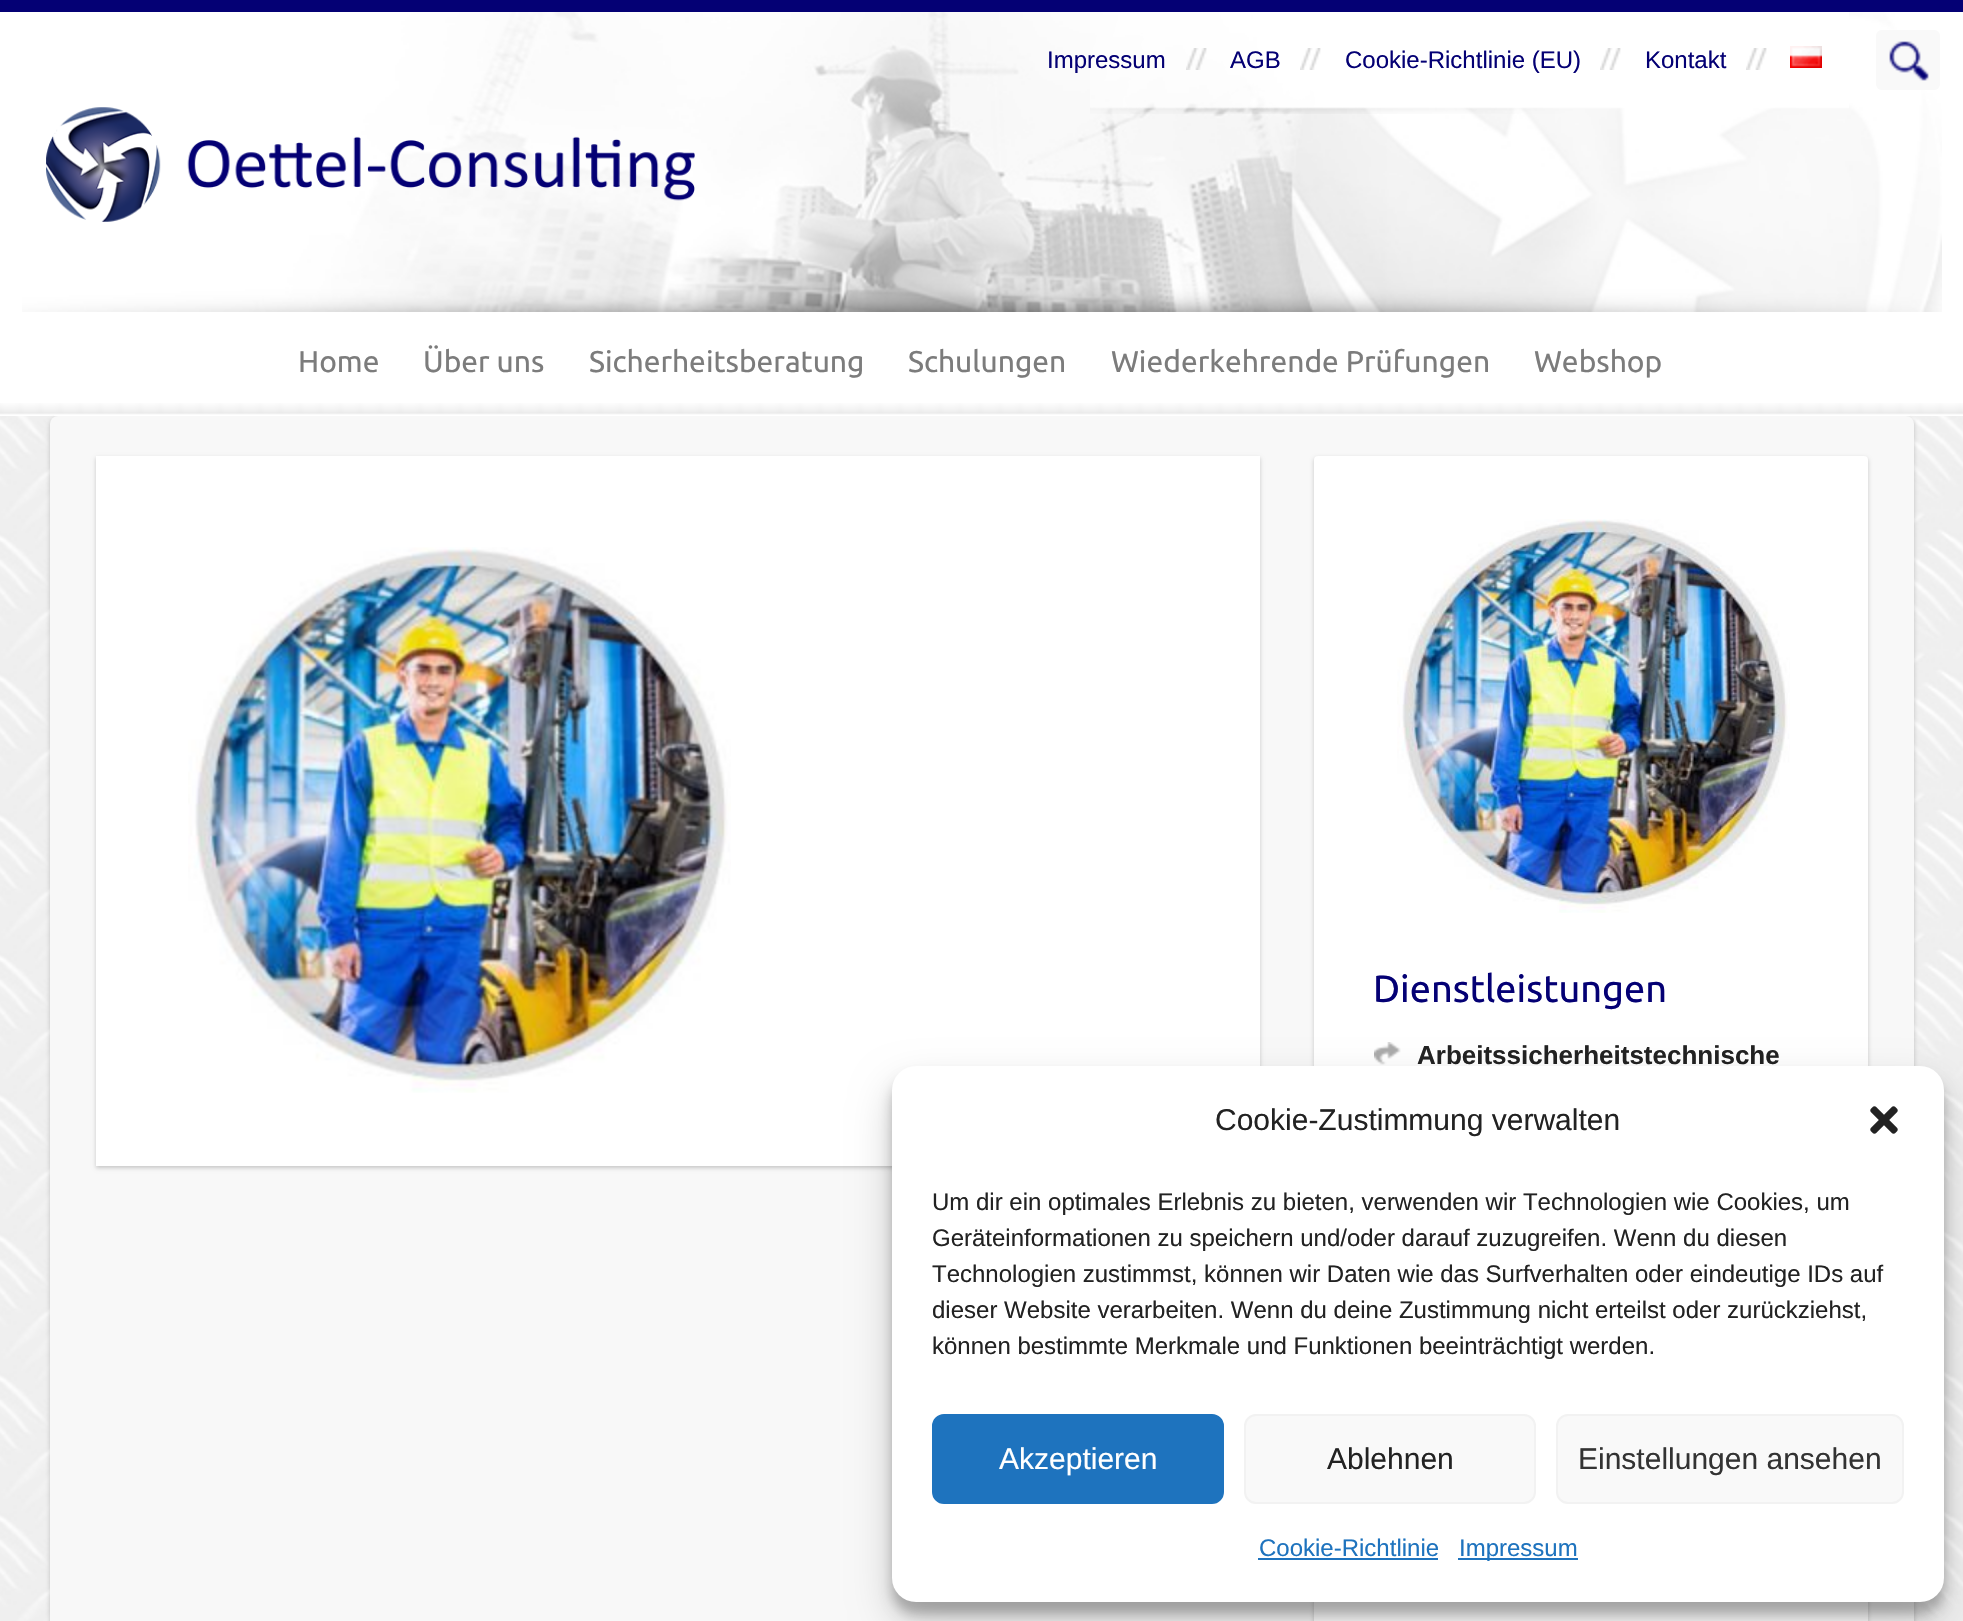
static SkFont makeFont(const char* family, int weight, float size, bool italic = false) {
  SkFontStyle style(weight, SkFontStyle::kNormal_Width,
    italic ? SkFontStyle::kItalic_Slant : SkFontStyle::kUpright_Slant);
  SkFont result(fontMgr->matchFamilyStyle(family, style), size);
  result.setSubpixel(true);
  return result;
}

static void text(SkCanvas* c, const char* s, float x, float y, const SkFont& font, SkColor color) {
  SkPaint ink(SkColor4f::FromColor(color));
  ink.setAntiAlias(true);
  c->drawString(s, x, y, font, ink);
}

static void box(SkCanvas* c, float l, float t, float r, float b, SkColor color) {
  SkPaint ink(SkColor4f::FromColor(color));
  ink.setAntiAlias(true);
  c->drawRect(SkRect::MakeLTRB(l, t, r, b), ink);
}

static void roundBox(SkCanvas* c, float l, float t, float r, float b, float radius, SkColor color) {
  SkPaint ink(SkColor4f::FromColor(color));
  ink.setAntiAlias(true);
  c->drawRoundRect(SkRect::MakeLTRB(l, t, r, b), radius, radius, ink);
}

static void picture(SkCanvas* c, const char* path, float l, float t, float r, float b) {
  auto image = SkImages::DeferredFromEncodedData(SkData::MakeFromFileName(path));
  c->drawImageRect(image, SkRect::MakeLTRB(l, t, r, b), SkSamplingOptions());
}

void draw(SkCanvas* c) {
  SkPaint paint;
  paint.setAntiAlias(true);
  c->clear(0xffffffff);
  picture(c, "img_01.png", 0, 416, 1963, 1621);
  box(c, 0, 0, 1963, 12, 0xff040074);
  picture(c, "img_02.png", 22, 12, 1942, 312);
  picture(c, "img_03.png", 1090, 12, 1849, 114);
  SkFont face1 = makeFont("Liberation Sans", 400, 24);
  text(c, "Impressum", 1047, 68, face1, 0xff040074);
  picture(c, "img_04.png", 1186, 48, 1207, 70);
  text(c, "AGB", 1230, 68, face1, 0xff040074);
  picture(c, "img_05.png", 1300, 48, 1321, 70);
  text(c, "Cookie-Richtlinie (EU)", 1345, 68, face1, 0xff040074);
  picture(c, "img_06.png", 1600, 48, 1621, 70);
  text(c, "Kontakt", 1645, 68, face1, 0xff040074);
  picture(c, "img_06.png", 1746, 48, 1767, 70);
  picture(c, "img_07.png", 1790, 46, 1822, 68);
  roundBox(c, 1876, 30, 1940, 90, 6, 0xfff9f9f9);
  picture(c, "img_08.png", 1889, 41, 1929, 81);
  picture(c, "img_09.png", 46, 107, 695, 222);
  paint.setColor(0x33000000);
  paint.setMaskFilter(SkMaskFilter::MakeBlur(kNormal_SkBlurStyle, 2));
  c->drawRoundRect(SkRect::MakeLTRB(50, 418, 1914, 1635), 8, 8, paint);
  paint.setMaskFilter(nullptr);
  box(c, 54, 415, 1910, 416, 0xffffffff);
  picture(c, "img_10.png", 0, 403, 1963, 415);
  SkFont face2 = makeFont("Ubuntu", 400, 30);
  text(c, "Home", 298, 372, face2, 0xff7c7c7c);
  text(c, "Über uns", 423, 372, face2, 0xff7c7c7c);
  text(c, "Sicherheitsberatung", 589, 372, face2, 0xff7c7c7c);
  text(c, "Schulungen", 908, 372, face2, 0xff7c7c7c);
  text(c, "Wiederkehrende Prüfungen", 1111, 372, face2, 0xff7c7c7c);
  text(c, "Webshop", 1534, 372, face2, 0xff7c7c7c);
  roundBox(c, 50, 416, 1914, 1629, 8, 0xfff8f8f8);
  paint.setMaskFilter(SkMaskFilter::MakeBlur(kNormal_SkBlurStyle, 2));
  c->drawRect(SkRect::MakeLTRB(96, 458, 1260, 1168), paint);
  paint.setMaskFilter(nullptr);
  box(c, 96, 456, 1260, 1166, 0xffffffff);
  picture(c, "img_11.png", 188, 547, 731, 1093);
  paint.setMaskFilter(SkMaskFilter::MakeBlur(kNormal_SkBlurStyle, 2));
  c->drawRoundRect(SkRect::MakeLTRB(1314, 458, 1868, 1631), 4, 4, paint);
  paint.setMaskFilter(nullptr);
  roundBox(c, 1314, 456, 1868, 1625, 4, 0xffffffff);
  picture(c, "img_12.png", 1397, 519, 1790, 913);
  SkFont face3 = makeFont("Ubuntu", 400, 38);
  text(c, "Dienstleistungen", 1373, 1002, face3, 0xff040074);
  picture(c, "img_13.png", 1374, 1042, 1401, 1065);
  SkFont face4 = makeFont("Liberation Sans", 700, 26);
  text(c, "Arbeitssicherheitstechnische", 1417, 1064, face4, 0xff222222);
  paint.setColor(0x3b000000);
  paint.setMaskFilter(SkMaskFilter::MakeBlur(kNormal_SkBlurStyle, 6));
  c->drawRoundRect(SkRect::MakeLTRB(892, 1078, 1944, 1614), 24, 24, paint);
  paint.setMaskFilter(nullptr);
  paint.setColor(0x30000000);
  paint.setMaskFilter(SkMaskFilter::MakeBlur(kNormal_SkBlurStyle, 20));
  c->drawRoundRect(SkRect::MakeLTRB(892, 1086, 1944, 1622), 24, 24, paint);
  paint.setMaskFilter(nullptr);
  roundBox(c, 892, 1066, 1944, 1602, 24, 0xffffffff);
  SkFont face5 = makeFont("Liberation Sans", 400, 30);
  text(c, "Cookie-Zustimmung verwalten", 1215, 1130, face5, 0xff222222);
  picture(c, "img_14.png", 1870, 1106, 1898, 1134);
  text(c, "Um dir ein optimales Erlebnis zu bieten, verwenden wir Technologien wie Cookies, um", 932, 1210, face1, 0xff222222);
  text(c, "Geräteinformationen zu speichern und/oder darauf zuzugreifen. Wenn du diesen", 932, 1246, face1, 0xff222222);
  text(c, "Technologien zustimmst, können wir Daten wie das Surfverhalten oder eindeutige IDs auf", 932, 1282, face1, 0xff222222);
  text(c, "dieser Website verarbeiten. Wenn du deine Zustimmung nicht erteilst oder zurückziehst,", 932, 1318, face1, 0xff222222);
  text(c, "können bestimmte Merkmale und Funktionen beeinträchtigt werden.", 932, 1354, face1, 0xff222222);
  paint.setColor(0xff1e73be);
  c->drawRoundRect(SkRect::MakeLTRB(933, 1415, 1223, 1503), 11, 11, paint);
  paint.setStyle(SkPaint::kStroke_Style);
  paint.setStrokeWidth(2);
  c->drawRoundRect(SkRect::MakeLTRB(933, 1415, 1223, 1503), 11, 11, paint);
  text(c, "Akzeptieren", 999, 1469, face5, 0xffffffff);
  paint.setStyle(SkPaint::kFill_Style);
  paint.setColor(0xfff9f9f9);
  c->drawRoundRect(SkRect::MakeLTRB(1245, 1415, 1535, 1503), 11, 11, paint);
  paint.setStyle(SkPaint::kStroke_Style);
  paint.setColor(0xfff2f2f2);
  c->drawRoundRect(SkRect::MakeLTRB(1245, 1415, 1535, 1503), 11, 11, paint);
  text(c, "Ablehnen", 1327, 1469, face5, 0xff222222);
  paint.setStyle(SkPaint::kFill_Style);
  paint.setColor(0xfff9f9f9);
  c->drawRoundRect(SkRect::MakeLTRB(1557, 1415, 1903, 1503), 11, 11, paint);
  paint.setStyle(SkPaint::kStroke_Style);
  paint.setColor(0xfff2f2f2);
  c->drawRoundRect(SkRect::MakeLTRB(1557, 1415, 1903, 1503), 11, 11, paint);
  text(c, "Einstellungen ansehen", 1578, 1469, face5, 0xff333333);
  text(c, "Cookie-Richtlinie", 1259, 1556, face1, 0xff1e73be);
  box(c, 1258, 1558, 1438, 1560, 0xff1e73be);
  box(c, 1458, 1558, 1578, 1560, 0xff1e73be);
  text(c, "Impressum", 1459, 1556, face1, 0xff1e73be);
}
